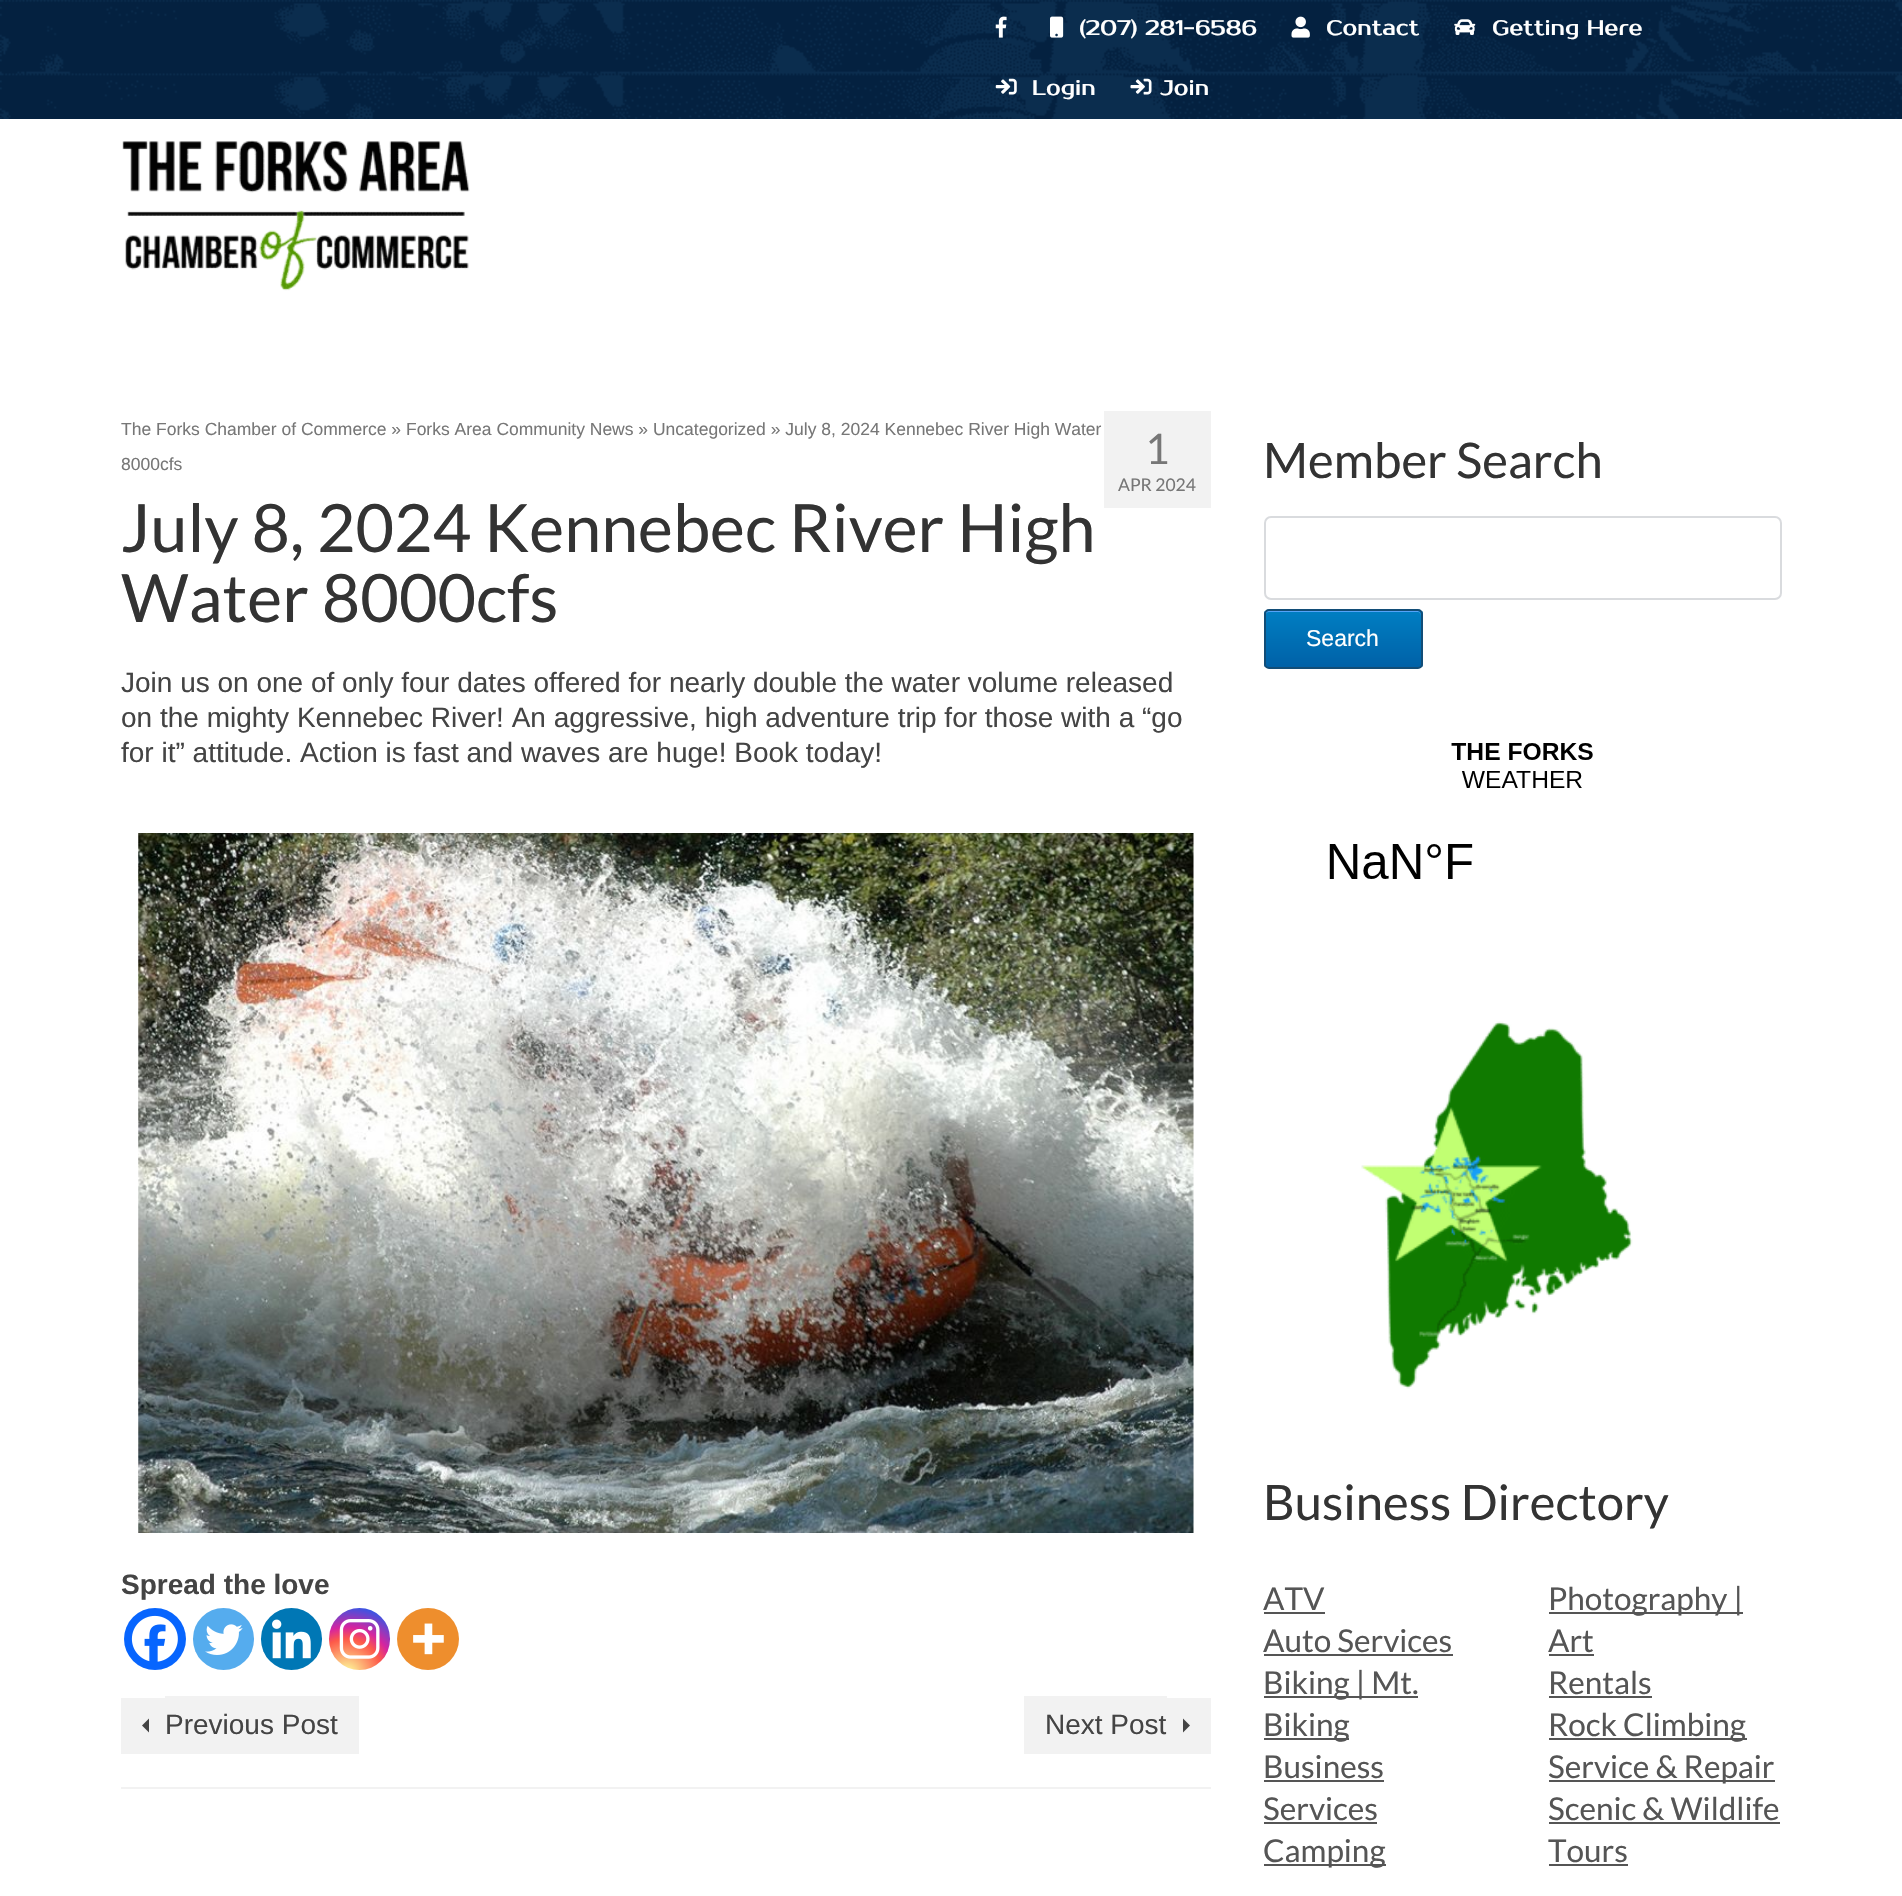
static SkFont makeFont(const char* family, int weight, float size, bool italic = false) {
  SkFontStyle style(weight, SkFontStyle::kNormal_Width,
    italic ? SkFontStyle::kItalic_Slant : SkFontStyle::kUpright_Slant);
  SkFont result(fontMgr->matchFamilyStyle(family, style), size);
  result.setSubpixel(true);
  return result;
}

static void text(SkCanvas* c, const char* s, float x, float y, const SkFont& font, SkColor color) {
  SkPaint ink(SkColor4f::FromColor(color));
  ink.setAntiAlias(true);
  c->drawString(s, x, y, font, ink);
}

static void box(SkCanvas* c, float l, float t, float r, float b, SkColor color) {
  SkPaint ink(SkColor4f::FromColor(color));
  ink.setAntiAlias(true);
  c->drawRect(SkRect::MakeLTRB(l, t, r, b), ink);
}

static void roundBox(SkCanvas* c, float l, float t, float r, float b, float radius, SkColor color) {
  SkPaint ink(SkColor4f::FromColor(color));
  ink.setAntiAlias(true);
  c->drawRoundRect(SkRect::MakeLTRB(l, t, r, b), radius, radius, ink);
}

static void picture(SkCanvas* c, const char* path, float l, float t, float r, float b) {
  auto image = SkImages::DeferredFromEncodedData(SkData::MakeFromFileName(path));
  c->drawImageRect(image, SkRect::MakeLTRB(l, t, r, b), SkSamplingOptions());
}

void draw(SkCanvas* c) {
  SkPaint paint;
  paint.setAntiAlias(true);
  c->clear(0xffffffff);
  picture(c, "img_01.png", 0, 0, 1902, 119);
  picture(c, "img_02.png", 995, 16, 1007, 38);
  picture(c, "img_03.png", 1050, 16, 1064, 38);
  SkFont face1 = makeFont("Prosto One", 400, 21);
  text(c, "(207) 281-6586", 1079, 35, face1, 0xffffffff);
  picture(c, "img_04.png", 1291, 16, 1310, 38);
  text(c, "Contact", 1326, 35, face1, 0xffffffff);
  picture(c, "img_05.png", 1454, 19, 1476, 35);
  text(c, "Getting Here", 1492, 35, face1, 0xffffffff);
  picture(c, "img_06.png", 995, 78, 1017, 95);
  text(c, "Login", 1032, 95, face1, 0xffffffff);
  picture(c, "img_07.png", 1130, 78, 1152, 95);
  text(c, "Join", 1160, 95, face1, 0xffffffff);
  picture(c, "img_08.png", 122, 140, 470, 291);
  SkFont face2 = makeFont("Liberation Sans", 400, 17.5f);
  text(c, "The Forks Chamber of Commerce » Forks Area Community News » Uncategorized » July 8, 2024 Kennebec River High Water", 121, 435, face2, 0xff777777);
  text(c, "8000cfs", 121, 470, face2, 0xff777777);
  SkFont face3 = makeFont("Lato", 400, 66.5f);
  text(c, "July 8, 2024 Kennebec River High", 121, 552, face3, 0xff333333);
  text(c, "Water 8000cfs", 121, 622, face3, 0xff333333);
  box(c, 1104, 411, 1211, 508, 0xfff2f2f2);
  SkFont face4 = makeFont("Lato", 400, 42);
  text(c, "1", 1145, 464, face4, 0xff777777);
  SkFont face5 = makeFont("Lato", 400, 17.5f);
  text(c, "APR 2024", 1118, 491, face5, 0xff777777);
  SkFont face6 = makeFont("Liberation Sans", 400, 28);
  text(c, "Join us on one of only four dates offered for nearly double the water volume released", 121, 692, face6, 0xff444444);
  text(c, "on the mighty Kennebec River! An aggressive, high adventure trip for those with a “go", 121, 727, face6, 0xff444444);
  text(c, "for it” attitude. Action is fast and waves are huge! Book today!", 121, 762, face6, 0xff444444);
  picture(c, "img_09.png", 138, 833, 1194, 1533);
  SkFont face7 = makeFont("Liberation Sans", 700, 28);
  text(c, "Spread the love", 121, 1594, face7, 0xff444444);
  paint.setColor(0xff0765fe);
  c->drawCircle(155, 1639, 31, paint);
  picture(c, "img_10.png", 131, 1615, 178, 1662);
  roundBox(c, 193, 1608, 254, 1670, 30.5f, 0xff55acee);
  picture(c, "img_11.png", 205, 1624, 243, 1655);
  roundBox(c, 261, 1608, 322, 1670, 30.5f, 0xff0077b5);
  picture(c, "img_12.png", 272, 1619, 311, 1659);
  {
    const SkColor colors[] = {0xfffdf497, 0xfffdf497, 0xfffd5949, 0xffd6249f, 0xff285aeb};
    const float stops[] = {0, 0.05f, 0.45f, 0.6f, 0.9f};
    paint.setShader(SkGradientShader::MakeRadial({347, 1674}, 78, colors, stops, 5, SkTileMode::kClamp));
    paint.setAlpha(255);
  }
  c->drawRoundRect(SkRect::MakeLTRB(329, 1608, 390, 1670), 30.5f, 30.5f, paint);
  picture(c, "img_13.png", 339, 1619, 380, 1659);
  paint.setShader(nullptr);
  paint.setColor(0xffee8e2d);
  c->drawCircle(428, 1639, 31, paint);
  picture(c, "img_14.png", 413, 1623, 444, 1655);
  box(c, 121, 1787, 1211, 1789, 0xfff2f2f2);
  box(c, 165, 1696, 359, 1754, 0xfff2f2f2);
  text(c, "Previous Post", 165, 1734, face6, 0xff444444);
  box(c, 121, 1698, 165, 1754, 0xfff2f2f2);
  paint.setColor(0xff444444);
  c->drawPath(SkPathBuilder().moveTo(149, 1718.5f).lineTo(142, 1725.5f).lineTo(149, 1732.5f).close().detach(), paint);
  box(c, 1024, 1696, 1167, 1754, 0xfff2f2f2);
  text(c, "Next Post", 1045, 1734, face6, 0xff444444);
  box(c, 1167, 1698, 1211, 1754, 0xfff2f2f2);
  c->drawPath(SkPathBuilder().moveTo(1183, 1732.5f).lineTo(1190, 1725.5f).lineTo(1183, 1718.5f).close().detach(), paint);
  SkFont face8 = makeFont("Lato", 400, 49);
  text(c, "Member Search", 1263, 478, face8, 0xff333333);
  paint.setStyle(SkPaint::kStroke_Style);
  paint.setStrokeWidth(2);
  paint.setColor(0xffd9dbde);
  c->drawRoundRect(SkRect::MakeLTRB(1265, 517, 1781, 599), 6, 6, paint);
  c->save();
  c->clipPath(SkPathBuilder().moveTo(1269, 609).lineTo(1418, 609).cubicTo(1421, 609, 1423, 611, 1423, 614).lineTo(1423, 664).cubicTo(1423, 667, 1421, 669, 1418, 669).lineTo(1269, 669).cubicTo(1266, 669, 1264, 667, 1264, 664).lineTo(1264, 614).cubicTo(1264, 611, 1266, 609, 1269, 609).close().detach(), true);
  paint.setStyle(SkPaint::kFill_Style);
  {
    const SkColor colors[] = {0xff007dc1, 0xff0061a7};
    const float stops[] = {0.05f, 1};
    const SkPoint ends[] = {{1343, 611}, {1343, 667}};
    paint.setShader(SkGradientShader::MakeLinear(ends, colors, stops, 2, SkTileMode::kClamp));
    paint.setAlpha(255);
  }
  c->drawRect(SkRect::MakeLTRB(1264, 611, 1423, 667), paint);
  c->restore();
  paint.setShader(nullptr);
  paint.setColor(0xff54a3f7);
  c->drawPath(SkPathBuilder().moveTo(1269, 612).lineTo(1418, 612).cubicTo(1419, 612, 1421, 614, 1421, 616).cubicTo(1421, 614, 1420, 612, 1418, 611).lineTo(1268, 611).cubicTo(1266, 612, 1265, 614, 1265, 616).cubicTo(1265, 614, 1267, 612, 1269, 612).close().detach(), paint);
  paint.setStyle(SkPaint::kStroke_Style);
  paint.setColor(0xff124d77);
  c->drawRoundRect(SkRect::MakeLTRB(1265, 610, 1422, 668), 4, 4, paint);
  SkFont face9 = makeFont("Liberation Sans", 400, 23);
  text(c, "Search", 1306, 646, face9, 0xffffffff);
  picture(c, "img_15.png", 1329, 743, 1593, 879);
  picture(c, "img_16.png", 1361, 1021, 1633, 1389);
  text(c, "Business Directory", 1263, 1520, face8, 0xff333333);
  SkFont face10 = makeFont("Lato", 400, 31.5f);
  text(c, "ATV", 1263, 1610, face10, 0xff555555);
  box(c, 1264, 1612, 1325, 1614, 0xff555555);
  text(c, "Auto Services", 1263, 1652, face10, 0xff555555);
  box(c, 1264, 1654, 1453, 1656, 0xff555555);
  box(c, 1264, 1696, 1418, 1698, 0xff555555);
  text(c, "Biking | Mt.", 1263, 1694, face10, 0xff555555);
  box(c, 1264, 1738, 1349, 1740, 0xff555555);
  text(c, "Biking", 1263, 1736, face10, 0xff555555);
  text(c, "Business", 1263, 1778, face10, 0xff555555);
  box(c, 1264, 1780, 1384, 1782, 0xff555555);
  text(c, "Services", 1263, 1820, face10, 0xff555555);
  box(c, 1264, 1822, 1377, 1824, 0xff555555);
  box(c, 1264, 1864, 1386, 1866, 0xff555555);
  text(c, "Camping", 1263, 1862, face10, 0xff555555);
  box(c, 1549, 1612, 1743, 1614, 0xff555555);
  text(c, "Photography |", 1548, 1610, face10, 0xff555555);
  text(c, "Art", 1548, 1652, face10, 0xff555555);
  box(c, 1549, 1654, 1594, 1656, 0xff555555);
  text(c, "Rentals", 1548, 1694, face10, 0xff555555);
  box(c, 1549, 1696, 1652, 1698, 0xff555555);
  box(c, 1549, 1738, 1747, 1740, 0xff555555);
  text(c, "Rock Climbing", 1548, 1736, face10, 0xff555555);
  box(c, 1549, 1780, 1775, 1782, 0xff555555);
  text(c, "Service & Repair", 1548, 1778, face10, 0xff555555);
  text(c, "Scenic & Wildlife", 1548, 1820, face10, 0xff555555);
  box(c, 1549, 1822, 1780, 1824, 0xff555555);
  text(c, "Tours", 1548, 1862, face10, 0xff555555);
  box(c, 1549, 1864, 1628, 1866, 0xff555555);
}
